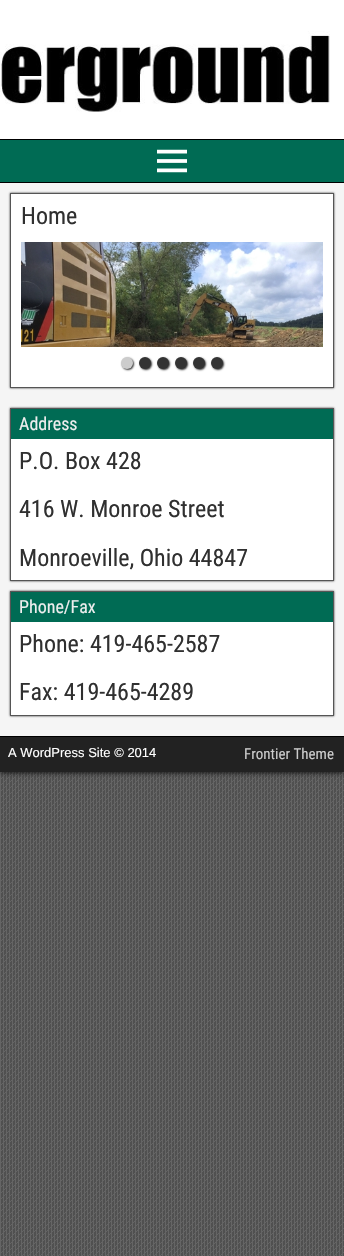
static SkFont makeFont(const char* family, int weight, float size, bool italic = false) {
  SkFontStyle style(weight, SkFontStyle::kNormal_Width,
    italic ? SkFontStyle::kItalic_Slant : SkFontStyle::kUpright_Slant);
  SkFont result(fontMgr->matchFamilyStyle(family, style), size);
  result.setSubpixel(true);
  return result;
}

static void text(SkCanvas* c, const char* s, float x, float y, const SkFont& font, SkColor color) {
  SkPaint ink(SkColor4f::FromColor(color));
  ink.setAntiAlias(true);
  c->drawString(s, x, y, font, ink);
}

static void box(SkCanvas* c, float l, float t, float r, float b, SkColor color) {
  SkPaint ink(SkColor4f::FromColor(color));
  ink.setAntiAlias(true);
  c->drawRect(SkRect::MakeLTRB(l, t, r, b), ink);
}

static void picture(SkCanvas* c, const char* path, float l, float t, float r, float b) {
  auto image = SkImages::DeferredFromEncodedData(SkData::MakeFromFileName(path));
  c->drawImageRect(image, SkRect::MakeLTRB(l, t, r, b), SkSamplingOptions());
}

void draw(SkCanvas* c) {
  SkPaint paint;
  paint.setAntiAlias(true);
  c->clear(0xff505050);
  picture(c, "img_01.png", 0, 772, 344, 1256);
  paint.setColor(0xff000000);
  paint.setMaskFilter(SkMaskFilter::MakeBlur(kNormal_SkBlurStyle, 3));
  c->drawRect(SkRect::MakeLTRB(0, 0, 344, 772), paint);
  paint.setMaskFilter(nullptr);
  box(c, 0, 0, 344, 139, 0xffffffff);
  picture(c, "img_02.png", 0, 31, 330, 112);
  box(c, 0, 139, 344, 140, 0xff000000);
  box(c, 0, 140, 344, 182, 0xff006b54);
  box(c, 0, 182, 344, 183, 0xff000000);
  picture(c, "img_03.png", 157, 149, 187, 173);
  box(c, 0, 183, 344, 736, 0xfff5f5f5);
  paint.setColor(0xff333333);
  paint.setMaskFilter(SkMaskFilter::MakeBlur(kNormal_SkBlurStyle, 1));
  c->drawRect(SkRect::MakeLTRB(10, 193, 334, 388), paint);
  paint.setMaskFilter(nullptr);
  paint.setColor(0xffffffff);
  c->drawRect(SkRect::MakeLTRB(10.5f, 193.5f, 333.5f, 387.5f), paint);
  paint.setStyle(SkPaint::kStroke_Style);
  paint.setStrokeWidth(1);
  paint.setColor(0xff555555);
  c->drawRect(SkRect::MakeLTRB(10.5f, 193.5f, 333.5f, 387.5f), paint);
  SkFont face1 = makeFont("Roboto Condensed", 400, 24);
  text(c, "Home", 21, 224, face1, 0xff303030);
  picture(c, "img_04.png", 21, 242, 323, 347);
  paint.setStyle(SkPaint::kFill_Style);
  paint.setColor(0xff333333);
  paint.setMaskFilter(SkMaskFilter::MakeBlur(kNormal_SkBlurStyle, 1));
  c->drawRoundRect(SkRect::MakeLTRB(122, 358, 134, 370), 6, 6, paint);
  paint.setMaskFilter(nullptr);
  paint.setColor(0xffcccccc);
  c->drawCircle(127, 363, 6, paint);
  paint.setColor(0xff333333);
  paint.setMaskFilter(SkMaskFilter::MakeBlur(kNormal_SkBlurStyle, 1));
  c->drawRoundRect(SkRect::MakeLTRB(140, 358, 152, 370), 6, 6, paint);
  paint.setMaskFilter(nullptr);
  c->drawCircle(145, 363, 6, paint);
  paint.setMaskFilter(SkMaskFilter::MakeBlur(kNormal_SkBlurStyle, 1));
  c->drawRoundRect(SkRect::MakeLTRB(158, 358, 170, 370), 6, 6, paint);
  paint.setMaskFilter(nullptr);
  c->drawCircle(163, 363, 6, paint);
  paint.setMaskFilter(SkMaskFilter::MakeBlur(kNormal_SkBlurStyle, 1));
  c->drawRoundRect(SkRect::MakeLTRB(176, 358, 188, 370), 6, 6, paint);
  paint.setMaskFilter(nullptr);
  c->drawCircle(181, 363, 6, paint);
  paint.setMaskFilter(SkMaskFilter::MakeBlur(kNormal_SkBlurStyle, 1));
  c->drawRoundRect(SkRect::MakeLTRB(194, 358, 206, 370), 6, 6, paint);
  paint.setMaskFilter(nullptr);
  c->drawCircle(199, 363, 6, paint);
  paint.setMaskFilter(SkMaskFilter::MakeBlur(kNormal_SkBlurStyle, 1));
  c->drawRoundRect(SkRect::MakeLTRB(212, 358, 224, 370), 6, 6, paint);
  paint.setMaskFilter(nullptr);
  c->drawCircle(217, 363, 6, paint);
  paint.setMaskFilter(SkMaskFilter::MakeBlur(kNormal_SkBlurStyle, 1));
  c->drawRect(SkRect::MakeLTRB(10, 408, 334, 581), paint);
  paint.setMaskFilter(nullptr);
  box(c, 11, 439, 333, 580, 0xffffffff);
  paint.setStyle(SkPaint::kStroke_Style);
  paint.setColor(0xff555555);
  c->drawRect(SkRect::MakeLTRB(10.5f, 408.5f, 333.5f, 580.5f), paint);
  box(c, 11, 409, 333, 439, 0xff006b54);
  SkFont face2 = makeFont("Roboto Condensed", 400, 18);
  text(c, "Address", 19, 430, face2, 0xffeeeeee);
  text(c, "P.O. Box 428", 19, 469, face1, 0xff303030);
  text(c, "416 W. Monroe Street", 19, 517, face1, 0xff303030);
  text(c, "Monroeville, Ohio 44847", 19, 566, face1, 0xff303030);
  paint.setStyle(SkPaint::kFill_Style);
  paint.setColor(0xff333333);
  paint.setMaskFilter(SkMaskFilter::MakeBlur(kNormal_SkBlurStyle, 1));
  c->drawRect(SkRect::MakeLTRB(10, 591, 334, 716), paint);
  paint.setMaskFilter(nullptr);
  box(c, 11, 622, 333, 715, 0xffffffff);
  paint.setStyle(SkPaint::kStroke_Style);
  paint.setColor(0xff555555);
  c->drawRect(SkRect::MakeLTRB(10.5f, 591.5f, 333.5f, 715.5f), paint);
  box(c, 11, 592, 333, 622, 0xff006b54);
  text(c, "Phone/Fax", 19, 613, face2, 0xffeeeeee);
  text(c, "Phone: 419-465-2587", 19, 652, face1, 0xff303030);
  text(c, "Fax: 419-465-4289", 19, 700, face1, 0xff303030);
  box(c, 0, 737, 344, 772, 0xff222222);
  box(c, 0, 736, 344, 737, 0xff000000);
  SkFont face3 = makeFont("Liberation Sans", 400, 13);
  text(c, "A WordPress Site © 2014", 8, 757, face3, 0xffffffff);
  SkFont face4 = makeFont("Roboto Condensed", 400, 15);
  text(c, "Frontier Theme", 244, 759, face4, 0xffcccccc);
}
